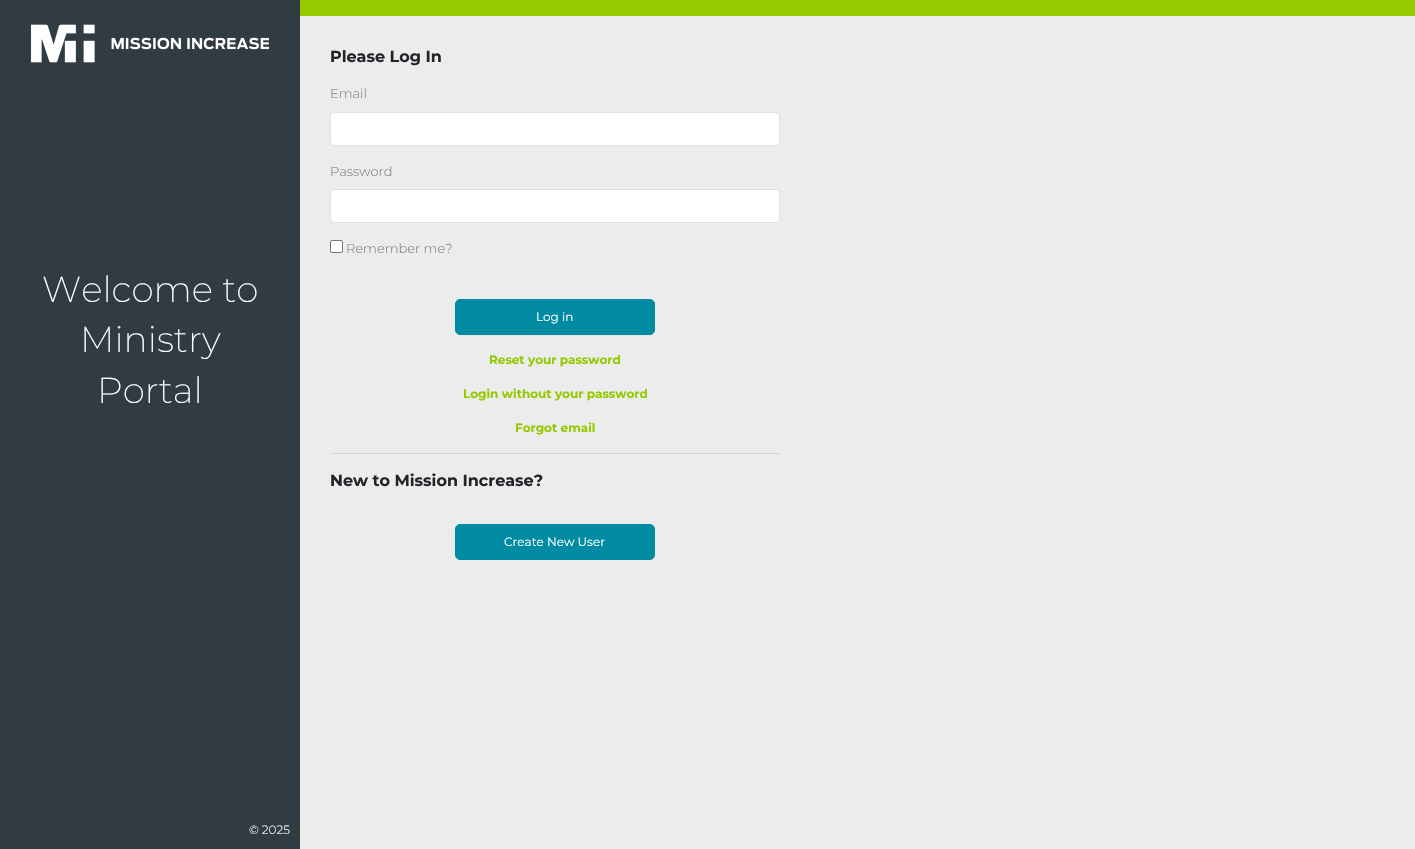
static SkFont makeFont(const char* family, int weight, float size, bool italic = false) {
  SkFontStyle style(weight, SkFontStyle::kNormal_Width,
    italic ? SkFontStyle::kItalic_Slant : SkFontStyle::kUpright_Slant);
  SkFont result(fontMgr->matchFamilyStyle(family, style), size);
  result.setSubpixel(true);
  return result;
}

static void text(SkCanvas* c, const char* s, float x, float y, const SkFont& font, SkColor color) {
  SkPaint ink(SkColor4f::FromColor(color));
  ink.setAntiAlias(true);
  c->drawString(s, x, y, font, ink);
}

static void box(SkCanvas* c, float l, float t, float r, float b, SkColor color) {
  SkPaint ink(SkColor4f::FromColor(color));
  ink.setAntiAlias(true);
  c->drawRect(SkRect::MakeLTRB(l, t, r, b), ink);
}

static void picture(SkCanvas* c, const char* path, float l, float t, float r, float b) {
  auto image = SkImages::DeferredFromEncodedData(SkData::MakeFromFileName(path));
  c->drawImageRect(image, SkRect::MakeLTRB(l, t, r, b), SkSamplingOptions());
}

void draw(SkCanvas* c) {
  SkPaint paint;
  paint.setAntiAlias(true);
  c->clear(0xffececec);
  box(c, 300, 0, 1415, 16, 0xff95c900);
  box(c, 0, 0, 300, 849, 0xff303b42);
  picture(c, "img_01.png", 30, 24, 270, 63);
  SkFont face1 = makeFont("Montserrat", 200, 36);
  text(c, "Welcome to", 42, 302, face1, 0xffffffff);
  text(c, "Ministry", 80, 352, face1, 0xffffffff);
  text(c, "Portal", 97, 403, face1, 0xffffffff);
  SkFont face2 = makeFont("Montserrat", 300, 12);
  text(c, "© 2025", 249, 834, face2, 0xffffffff);
  SkFont face3 = makeFont("Montserrat", 700, 16);
  text(c, "Please Log In", 330, 62, face3, 0xff212529);
  SkFont face4 = makeFont("Montserrat", 300, 13);
  text(c, "Email", 330, 98, face4, 0xff808080);
  paint.setColor(0xffffffff);
  c->drawRoundRect(SkRect::MakeLTRB(330.5f, 112.5f, 779.5f, 145.5f), 3.5f, 3.5f, paint);
  paint.setStyle(SkPaint::kStroke_Style);
  paint.setStrokeWidth(1);
  paint.setColor(0xffe0e0e0);
  c->drawRoundRect(SkRect::MakeLTRB(330.5f, 112.5f, 779.5f, 145.5f), 3.5f, 3.5f, paint);
  text(c, "Password", 330, 176, face4, 0xff808080);
  paint.setStyle(SkPaint::kFill_Style);
  paint.setColor(0xffffffff);
  c->drawRoundRect(SkRect::MakeLTRB(330.5f, 189.5f, 779.5f, 222.5f), 3.5f, 3.5f, paint);
  paint.setStyle(SkPaint::kStroke_Style);
  paint.setColor(0xffe0e0e0);
  c->drawRoundRect(SkRect::MakeLTRB(330.5f, 189.5f, 779.5f, 222.5f), 3.5f, 3.5f, paint);
  paint.setStyle(SkPaint::kFill_Style);
  paint.setColor(0xffffffff);
  c->drawRoundRect(SkRect::MakeLTRB(330.5f, 240.5f, 342.5f, 252.5f), 1.5f, 1.5f, paint);
  paint.setStyle(SkPaint::kStroke_Style);
  paint.setColor(0xff767676);
  c->drawRoundRect(SkRect::MakeLTRB(330.5f, 240.5f, 342.5f, 252.5f), 1.5f, 1.5f, paint);
  text(c, "Remember me?", 346, 253, face4, 0xff808080);
  paint.setStyle(SkPaint::kFill_Style);
  paint.setColor(0xff008ba2);
  c->drawRoundRect(SkRect::MakeLTRB(455.5f, 299.5f, 654.5f, 334.5f), 4.5f, 4.5f, paint);
  paint.setStyle(SkPaint::kStroke_Style);
  c->drawRoundRect(SkRect::MakeLTRB(455.5f, 299.5f, 654.5f, 334.5f), 4.5f, 4.5f, paint);
  SkFont face5 = makeFont("Montserrat", 400, 12);
  text(c, "Log in", 536, 321, face5, 0xffffffff);
  SkFont face6 = makeFont("Montserrat", 700, 12);
  text(c, "Reset your password", 489, 364, face6, 0xff95c900);
  text(c, "Login without your password", 463, 398, face6, 0xff95c900);
  text(c, "Forgot email", 515, 432, face6, 0xff95c900);
  box(c, 330, 453, 780, 454, 0xffd4d4d4);
  text(c, "New to Mission Increase?", 330, 486, face3, 0xff212529);
  paint.setStyle(SkPaint::kFill_Style);
  c->drawRoundRect(SkRect::MakeLTRB(455.5f, 524.5f, 654.5f, 559.5f), 4.5f, 4.5f, paint);
  paint.setStyle(SkPaint::kStroke_Style);
  c->drawRoundRect(SkRect::MakeLTRB(455.5f, 524.5f, 654.5f, 559.5f), 4.5f, 4.5f, paint);
  text(c, "Create New User", 504, 546, face5, 0xffffffff);
}
